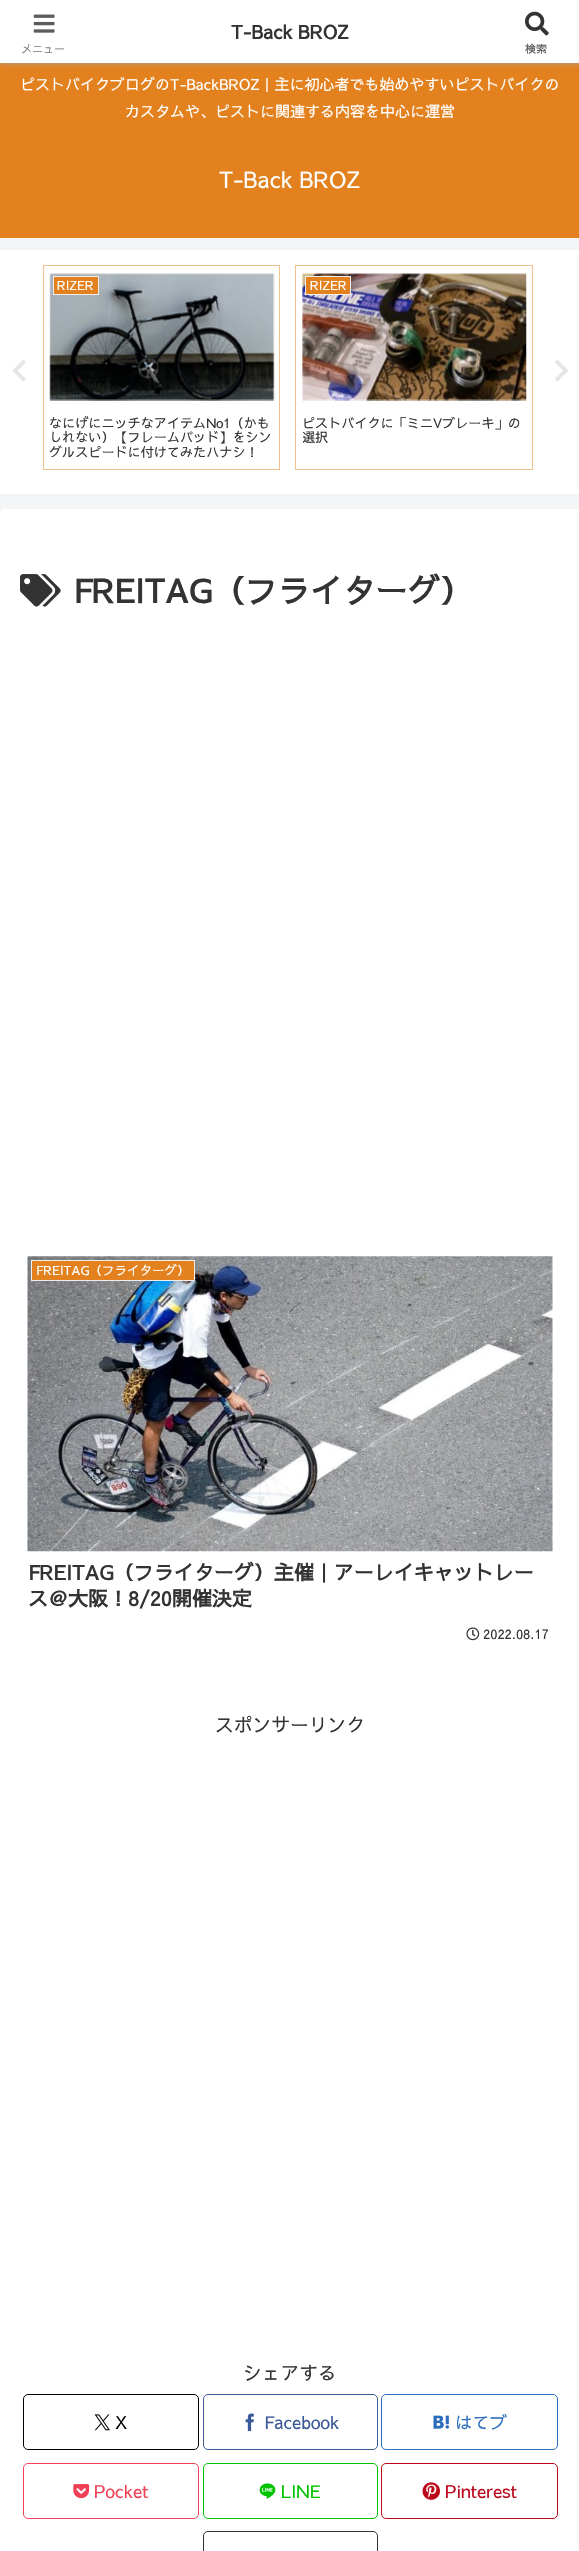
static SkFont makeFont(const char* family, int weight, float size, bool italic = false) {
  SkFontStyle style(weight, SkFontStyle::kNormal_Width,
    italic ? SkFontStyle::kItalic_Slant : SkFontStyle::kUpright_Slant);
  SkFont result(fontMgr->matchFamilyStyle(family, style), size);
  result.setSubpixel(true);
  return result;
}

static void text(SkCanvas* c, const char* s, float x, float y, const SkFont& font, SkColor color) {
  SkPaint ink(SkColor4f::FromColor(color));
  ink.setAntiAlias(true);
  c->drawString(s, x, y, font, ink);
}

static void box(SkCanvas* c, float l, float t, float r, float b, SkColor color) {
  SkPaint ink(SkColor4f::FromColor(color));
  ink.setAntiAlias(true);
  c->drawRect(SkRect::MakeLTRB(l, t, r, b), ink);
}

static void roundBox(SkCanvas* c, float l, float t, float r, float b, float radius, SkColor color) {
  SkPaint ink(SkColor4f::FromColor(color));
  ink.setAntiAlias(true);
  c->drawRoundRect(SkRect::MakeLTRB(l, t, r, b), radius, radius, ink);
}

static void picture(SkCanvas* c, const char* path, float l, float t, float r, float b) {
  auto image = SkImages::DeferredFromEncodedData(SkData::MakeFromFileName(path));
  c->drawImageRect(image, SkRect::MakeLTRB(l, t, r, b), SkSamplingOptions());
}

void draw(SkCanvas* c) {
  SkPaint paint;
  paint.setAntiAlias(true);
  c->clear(0xfff4f5f7);
  box(c, 0, 63, 579, 238, 0xffe3811e);
  paint.setColor(0xffa9a9a9);
  paint.setMaskFilter(SkMaskFilter::MakeBlur(kNormal_SkBlurStyle, 3));
  c->drawRect(SkRect::MakeLTRB(0, 0, 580, 63), paint);
  paint.setMaskFilter(nullptr);
  box(c, 0, 0, 579, 63, 0xffffffff);
  SkFont face1 = makeFont("Sawarabi Gothic", 700, 18.75f);
  text(c, "T-Back BROZ", 231, 39, face1, 0xff333333);
  picture(c, "img_01.png", 33, 14, 55, 33);
  SkFont face2 = makeFont("Sawarabi Gothic", 400, 11);
  text(c, "メニュー", 21, 53, face2, 0xff7c7c7c);
  picture(c, "img_02.png", 525, 11, 549, 36);
  text(c, "検索", 525, 53, face2, 0xff5c5c5c);
  SkFont face3 = makeFont("Sawarabi Gothic", 400, 15);
  text(c, "ピストバイクブログのT-BackBROZ｜主に初心者でも始めやすいピストバイクの", 20, 90, face3, 0xffffffff);
  text(c, "カスタムや、ピストに関連する内容を中心に運営", 125, 117, face3, 0xffffffff);
  SkFont face4 = makeFont("Sawarabi Gothic", 400, 22.5f);
  text(c, "T-Back BROZ", 219, 188, face4, 0xffffffff);
  box(c, 0, 250, 579, 494, 0xffffffff);
  picture(c, "img_03.png", 12, 360, 26, 382);
  paint.setStyle(SkPaint::kStroke_Style);
  paint.setStrokeWidth(1);
  paint.setColor(0xfff1c08f);
  c->drawRect(SkRect::MakeLTRB(43.5f, 265.5f, 279.5f, 469.5f), paint);
  picture(c, "img_04.png", 49, 273, 275, 401);
  paint.setStyle(SkPaint::kFill_Style);
  paint.setColor(0xffe3811e);
  c->drawRect(SkRect::MakeLTRB(53.5f, 276.5f, 98.5f, 294.5f), paint);
  paint.setStyle(SkPaint::kStroke_Style);
  paint.setColor(0xffeeeeee);
  c->drawRect(SkRect::MakeLTRB(53.5f, 276.5f, 98.5f, 294.5f), paint);
  SkFont face5 = makeFont("Sawarabi Gothic", 400, 12.5f);
  text(c, "RIZER", 57, 290, face5, 0xffffffff);
  SkFont face6 = makeFont("Sawarabi Gothic", 400, 13.1f);
  text(c, "なにげにニッチなアイテムNo1（かも", 49, 428, face6, 0xff333333);
  text(c, "しれない）【フレームパッド】をシン", 49, 442, face6, 0xff333333);
  text(c, "グルスピードに付けてみたハナシ！", 49, 457, face6, 0xff333333);
  paint.setColor(0xfff1c08f);
  c->drawRect(SkRect::MakeLTRB(295.5f, 265.5f, 532.5f, 469.5f), paint);
  picture(c, "img_05.png", 302, 273, 527, 401);
  paint.setStyle(SkPaint::kFill_Style);
  paint.setColor(0xffe3811e);
  c->drawRect(SkRect::MakeLTRB(305.5f, 276.5f, 350.5f, 294.5f), paint);
  paint.setStyle(SkPaint::kStroke_Style);
  paint.setColor(0xffeeeeee);
  c->drawRect(SkRect::MakeLTRB(305.5f, 276.5f, 350.5f, 294.5f), paint);
  text(c, "RIZER", 310, 290, face5, 0xffffffff);
  text(c, "ピストバイクに「ミニVブレーキ」の", 302, 428, face6, 0xff333333);
  c->save();
  c->clipRect(SkRect::MakeLTRB(303, 415, 526, 458));
  text(c, "選択", 302, 442, face6, 0xff333333);
  c->restore();
  picture(c, "img_06.png", 555, 360, 568, 382);
  roundBox(c, 0, 509, 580, 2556, 5, 0xffffffff);
  picture(c, "img_07.png", 20, 574, 61, 607);
  SkFont face7 = makeFont("Sawarabi Gothic", 700, 32.5f);
  text(c, "FREITAG（フライターグ）", 73, 603, face7, 0xff333333);
  picture(c, "img_08.png", 27, 1256, 553, 1552);
  paint.setStyle(SkPaint::kFill_Style);
  paint.setColor(0xffe3811e);
  c->drawRect(SkRect::MakeLTRB(31.5f, 1260.5f, 194.5f, 1280.5f), paint);
  paint.setStyle(SkPaint::kStroke_Style);
  paint.setColor(0xffeeeeee);
  c->drawRect(SkRect::MakeLTRB(31.5f, 1260.5f, 194.5f, 1280.5f), paint);
  text(c, "FREITAG（フライターグ）", 36, 1275, face5, 0xffffffff);
  SkFont face8 = makeFont("Sawarabi Gothic", 700, 20);
  text(c, "FREITAG（フライターグ）主催｜アーレイキャットレー", 28, 1580, face8, 0xff333333);
  text(c, "ス＠大阪！8/20開催決定", 28, 1606, face8, 0xff333333);
  picture(c, "img_09.png", 466, 1627, 480, 1641);
  text(c, "2022.08.17", 483, 1639, face6, 0xff333333);
  SkFont face9 = makeFont("Sawarabi Gothic", 400, 18.75f);
  text(c, "スポンサーリンク", 215, 1732, face9, 0xff333333);
  text(c, "シェアする", 243, 2380, face9, 0xff333333);
  paint.setColor(0xff000000);
  c->drawRoundRect(SkRect::MakeLTRB(23.5f, 2394.5f, 198.5f, 2449.5f), 4.5f, 4.5f, paint);
  picture(c, "img_10.png", 94, 2414, 110, 2431);
  SkFont face10 = makeFont("Sawarabi Gothic", 400, 17.5f);
  text(c, "X", 115, 2429, face10, 0xff000000);
  paint.setColor(0xff3b5998);
  c->drawRoundRect(SkRect::MakeLTRB(203.5f, 2394.5f, 377.5f, 2449.5f), 4.5f, 4.5f, paint);
  picture(c, "img_11.png", 245, 2413, 254, 2432);
  text(c, "Facebook", 264, 2429, face10, 0xff3b5998);
  paint.setColor(0xff2c6ebd);
  c->drawRoundRect(SkRect::MakeLTRB(381.5f, 2394.5f, 557.5f, 2449.5f), 4.5f, 4.5f, paint);
  picture(c, "img_12.png", 433, 2415, 449, 2429);
  text(c, "はてブ", 455, 2429, face10, 0xff2c6ebd);
  paint.setColor(0xffef4056);
  c->drawRoundRect(SkRect::MakeLTRB(23.5f, 2463.5f, 198.5f, 2518.5f), 4.5f, 4.5f, paint);
  picture(c, "img_13.png", 73, 2484, 90, 2499);
  text(c, "Pocket", 94, 2498, face10, 0xffef4056);
  paint.setColor(0xff00c300);
  c->drawRoundRect(SkRect::MakeLTRB(203.5f, 2463.5f, 377.5f, 2518.5f), 4.5f, 4.5f, paint);
  picture(c, "img_14.png", 259, 2483, 276, 2499);
  text(c, "LINE", 281, 2498, face10, 0xff00c300);
  paint.setColor(0xffbd081c);
  c->drawRoundRect(SkRect::MakeLTRB(381.5f, 2463.5f, 557.5f, 2518.5f), 4.5f, 4.5f, paint);
  picture(c, "img_15.png", 422, 2482, 440, 2500);
  text(c, "Pinterest", 445, 2498, face10, 0xffbd081c);
  paint.setColor(0xff333333);
  c->drawRoundRect(SkRect::MakeLTRB(203.5f, 2531.5f, 377.5f, 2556.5f), 4.5f, 4.5f, paint);
}
